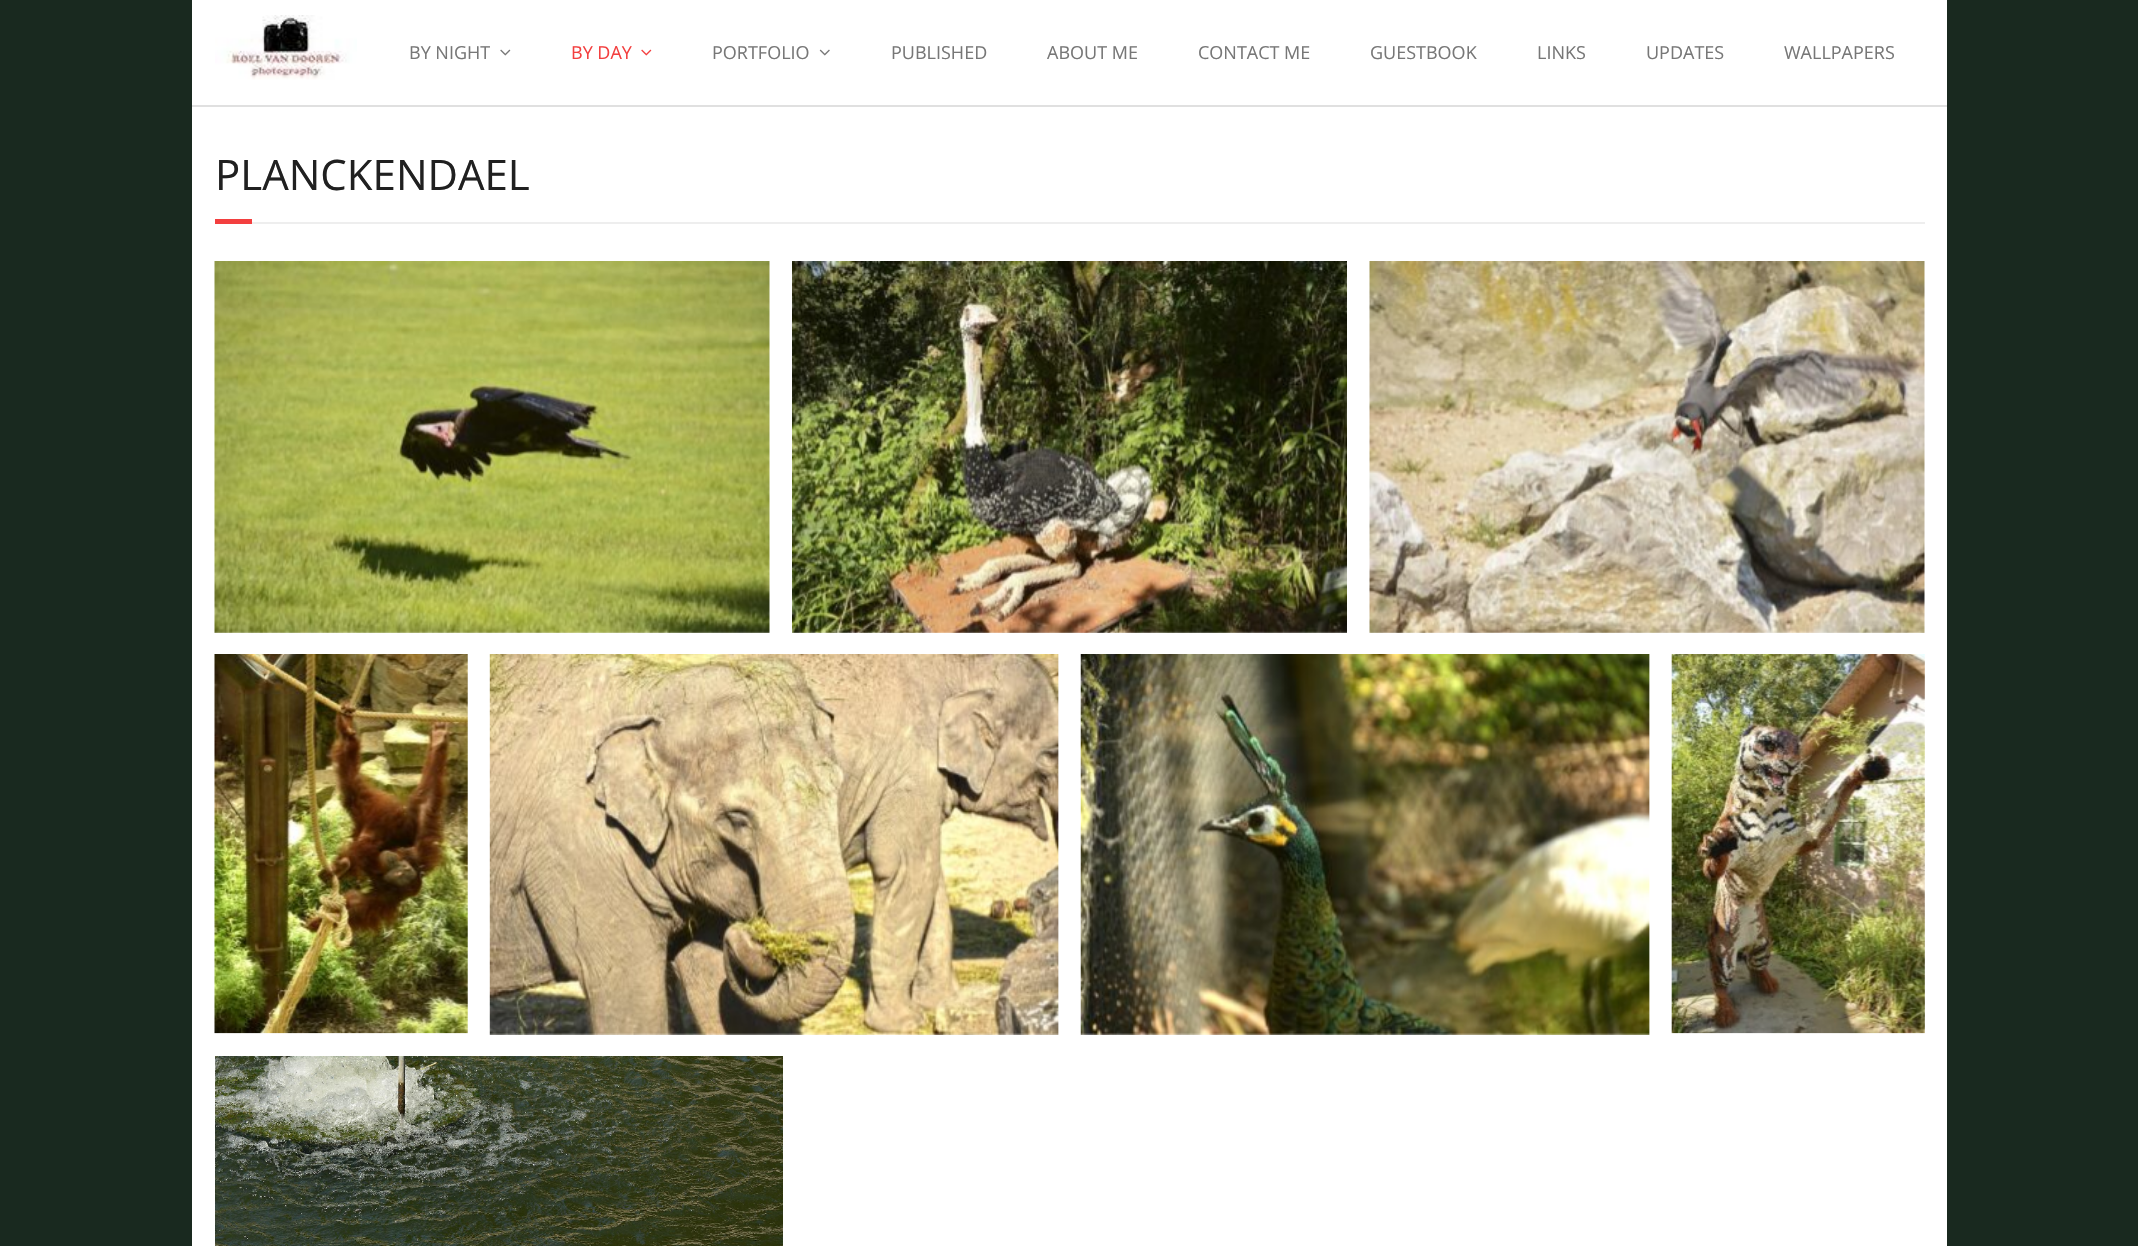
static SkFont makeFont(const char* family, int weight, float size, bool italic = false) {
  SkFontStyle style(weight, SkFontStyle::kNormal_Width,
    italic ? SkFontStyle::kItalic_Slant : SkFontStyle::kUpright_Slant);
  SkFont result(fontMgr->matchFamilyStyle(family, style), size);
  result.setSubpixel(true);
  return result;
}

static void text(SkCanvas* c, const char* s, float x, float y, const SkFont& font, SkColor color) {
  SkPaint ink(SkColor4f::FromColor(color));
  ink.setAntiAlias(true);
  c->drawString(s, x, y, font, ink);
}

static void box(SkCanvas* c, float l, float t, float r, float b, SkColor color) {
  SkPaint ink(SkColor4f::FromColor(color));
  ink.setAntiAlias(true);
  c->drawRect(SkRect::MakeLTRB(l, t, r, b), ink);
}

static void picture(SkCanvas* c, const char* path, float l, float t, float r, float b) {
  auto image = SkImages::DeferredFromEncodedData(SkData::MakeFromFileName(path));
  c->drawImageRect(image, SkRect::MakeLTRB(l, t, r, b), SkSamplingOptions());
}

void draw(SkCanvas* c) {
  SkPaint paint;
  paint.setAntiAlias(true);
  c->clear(0xff19291f);
  box(c, 192, 0, 1947, 1246, 0xffffffff);
  box(c, 192, 105, 1947, 107, 0xffe0e0e0);
  picture(c, "img_01.png", 215, 15, 357, 80);
  SkFont face1 = makeFont("Open Sans", 400, 18);
  text(c, "BY NIGHT", 409, 59, face1, 0xff777777);
  picture(c, "img_02.png", 500, 49, 511, 56);
  text(c, "BY DAY", 571, 59, face1, 0xfff33f3f);
  picture(c, "img_03.png", 641, 49, 652, 56);
  text(c, "PORTFOLIO", 712, 59, face1, 0xff777777);
  picture(c, "img_04.png", 819, 49, 830, 56);
  text(c, "PUBLISHED", 891, 59, face1, 0xff777777);
  text(c, "ABOUT ME", 1047, 59, face1, 0xff777777);
  text(c, "CONTACT ME", 1198, 59, face1, 0xff777777);
  text(c, "GUESTBOOK", 1370, 59, face1, 0xff777777);
  text(c, "LINKS", 1537, 59, face1, 0xff777777);
  text(c, "UPDATES", 1646, 59, face1, 0xff777777);
  text(c, "WALLPAPERS", 1784, 59, face1, 0xff777777);
  SkFont face2 = makeFont("Open Sans", 400, 42);
  text(c, "PLANCKENDAEL", 215, 190, face2, 0xff202020);
  box(c, 215, 219, 252, 224, 0xfff33f3f);
  box(c, 252, 222, 1925, 224, 0xffeeeeee);
  picture(c, "img_05.png", 214, 261, 770, 633);
  picture(c, "img_06.png", 792, 261, 1347, 633);
  picture(c, "img_07.png", 1369, 261, 1925, 633);
  picture(c, "img_08.png", 214, 654, 468, 1034);
  picture(c, "img_09.png", 489, 654, 1059, 1035);
  picture(c, "img_10.png", 1080, 654, 1650, 1035);
  picture(c, "img_11.png", 1671, 654, 1925, 1034);
  picture(c, "img_12.png", 215, 1056, 783, 1246);
}
